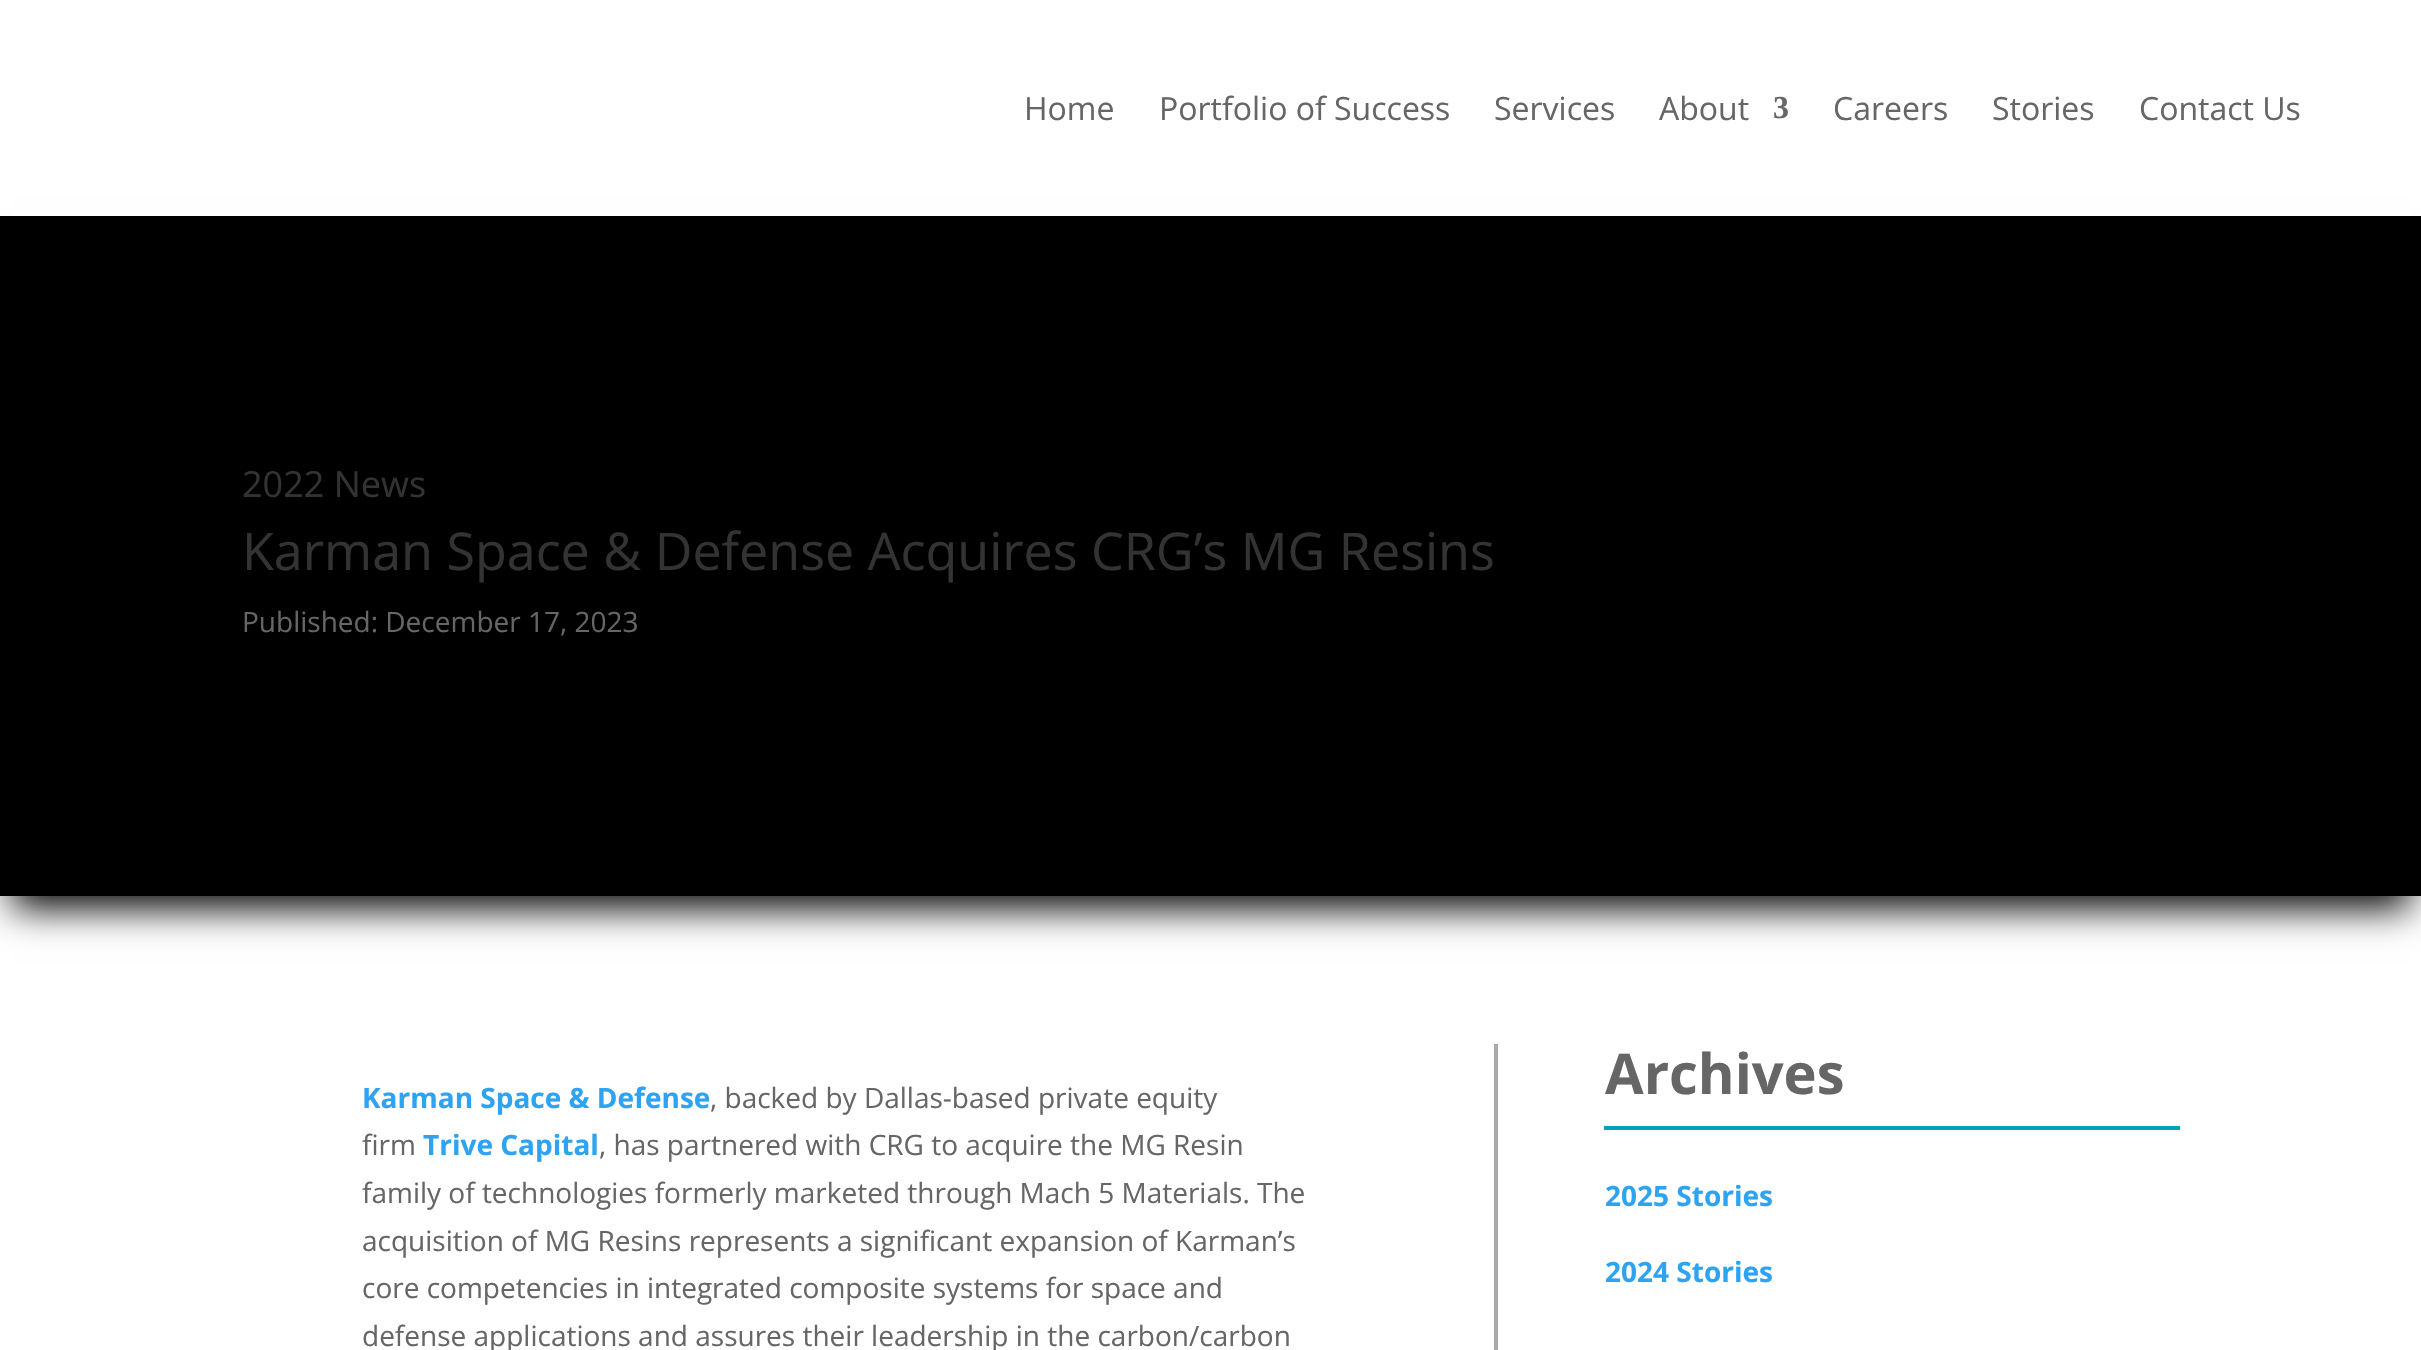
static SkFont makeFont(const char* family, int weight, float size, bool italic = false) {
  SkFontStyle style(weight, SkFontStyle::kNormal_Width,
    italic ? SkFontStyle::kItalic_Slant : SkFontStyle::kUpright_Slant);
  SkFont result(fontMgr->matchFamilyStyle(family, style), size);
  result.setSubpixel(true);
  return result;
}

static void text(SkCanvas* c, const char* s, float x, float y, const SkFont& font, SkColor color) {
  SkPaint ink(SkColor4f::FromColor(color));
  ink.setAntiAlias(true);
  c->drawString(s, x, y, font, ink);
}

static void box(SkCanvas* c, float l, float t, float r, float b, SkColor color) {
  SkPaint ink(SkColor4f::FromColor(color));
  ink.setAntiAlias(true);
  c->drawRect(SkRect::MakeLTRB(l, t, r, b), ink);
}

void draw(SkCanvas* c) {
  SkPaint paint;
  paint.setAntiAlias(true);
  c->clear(0xffffffff);
  paint.setColor(0xff000000);
  paint.setMaskFilter(SkMaskFilter::MakeBlur(kNormal_SkBlurStyle, 18));
  c->drawRect(SkRect::MakeLTRB(12, 252, 2410, 908), paint);
  paint.setMaskFilter(nullptr);
  box(c, 11, 210, 2411, 216, 0xffffffff);
  SkFont face1 = makeFont("Open Sans", 400, 32);
  text(c, "Home", 1024, 120, face1, 0xff666666);
  text(c, "Portfolio of Success", 1159, 120, face1, 0xff666666);
  text(c, "Services", 1494, 120, face1, 0xff666666);
  text(c, "About", 1659, 120, face1, 0xff666666);
  SkFont face2 = makeFont("Liberation Serif", 700, 32);
  text(c, "3", 1773, 118, face2, 0xff666666);
  text(c, "Careers", 1833, 120, face1, 0xff666666);
  text(c, "Stories", 1992, 120, face1, 0xff666666);
  text(c, "Contact Us", 2139, 120, face1, 0xff666666);
  box(c, 0, 216, 2421, 896, 0xff000000);
  SkFont face3 = makeFont("Open Sans", 400, 36);
  text(c, "2022 News", 242, 497, face3, 0xff333333);
  SkFont face4 = makeFont("Open Sans", 400, 52);
  text(c, "Karman Space & Defense Acquires CRG’s MG Resins", 242, 570, face4, 0xff333333);
  SkFont face5 = makeFont("Open Sans", 400, 28);
  text(c, "Published: December 17, 2023", 242, 632, face5, 0xff666666);
  box(c, 1494, 1044, 1498, 1350, 0xffaaaaaa);
  SkFont face6 = makeFont("Open Sans", 700, 28);
  text(c, "Karman Space & Defense", 362, 1108, face6, 0xff2ea3f2);
  text(c, ", backed by Dallas-based private equity", 710, 1108, face5, 0xff666666);
  text(c, "firm", 362, 1155, face5, 0xff666666);
  text(c, "Trive Capital", 423, 1155, face6, 0xff2ea3f2);
  text(c, ", has partnered with CRG to acquire the MG Resin", 599, 1155, face5, 0xff666666);
  text(c, "family of technologies formerly marketed through Mach 5 Materials. The", 362, 1203, face5, 0xff666666);
  text(c, "acquisition of MG Resins represents a significant expansion of Karman’s", 362, 1251, face5, 0xff666666);
  text(c, "core competencies in integrated composite systems for space and", 362, 1298, face5, 0xff666666);
  text(c, "defense applications and assures their leadership in the carbon/carbon", 362, 1346, face5, 0xff666666);
  SkFont face7 = makeFont("Open Sans", 700, 56);
  text(c, "Archives", 1605, 1094, face7, 0xff666666);
  box(c, 1604, 1126, 2180, 1130, 0xff01a2b6);
  text(c, "2025 Stories", 1605, 1206, face6, 0xff2ea3f2);
  text(c, "2024 Stories", 1605, 1282, face6, 0xff2ea3f2);
}
